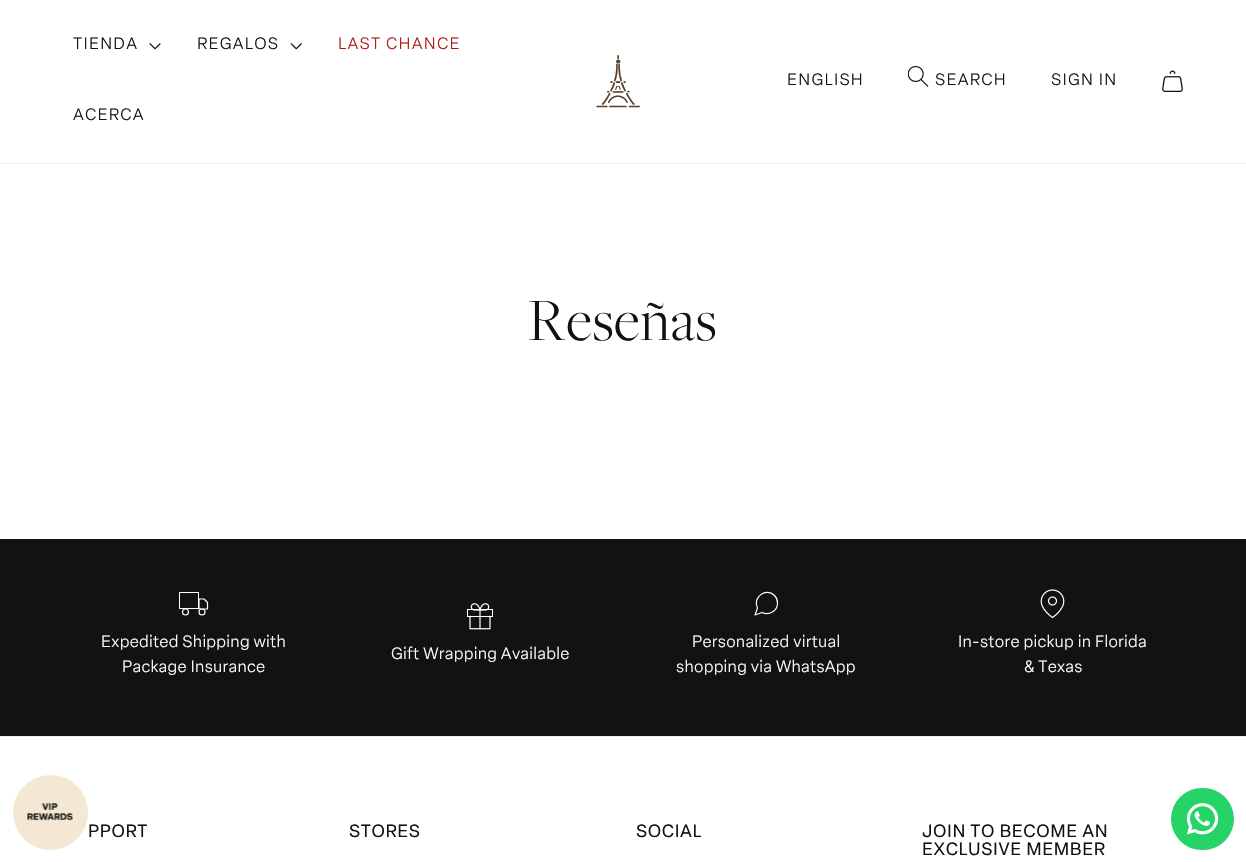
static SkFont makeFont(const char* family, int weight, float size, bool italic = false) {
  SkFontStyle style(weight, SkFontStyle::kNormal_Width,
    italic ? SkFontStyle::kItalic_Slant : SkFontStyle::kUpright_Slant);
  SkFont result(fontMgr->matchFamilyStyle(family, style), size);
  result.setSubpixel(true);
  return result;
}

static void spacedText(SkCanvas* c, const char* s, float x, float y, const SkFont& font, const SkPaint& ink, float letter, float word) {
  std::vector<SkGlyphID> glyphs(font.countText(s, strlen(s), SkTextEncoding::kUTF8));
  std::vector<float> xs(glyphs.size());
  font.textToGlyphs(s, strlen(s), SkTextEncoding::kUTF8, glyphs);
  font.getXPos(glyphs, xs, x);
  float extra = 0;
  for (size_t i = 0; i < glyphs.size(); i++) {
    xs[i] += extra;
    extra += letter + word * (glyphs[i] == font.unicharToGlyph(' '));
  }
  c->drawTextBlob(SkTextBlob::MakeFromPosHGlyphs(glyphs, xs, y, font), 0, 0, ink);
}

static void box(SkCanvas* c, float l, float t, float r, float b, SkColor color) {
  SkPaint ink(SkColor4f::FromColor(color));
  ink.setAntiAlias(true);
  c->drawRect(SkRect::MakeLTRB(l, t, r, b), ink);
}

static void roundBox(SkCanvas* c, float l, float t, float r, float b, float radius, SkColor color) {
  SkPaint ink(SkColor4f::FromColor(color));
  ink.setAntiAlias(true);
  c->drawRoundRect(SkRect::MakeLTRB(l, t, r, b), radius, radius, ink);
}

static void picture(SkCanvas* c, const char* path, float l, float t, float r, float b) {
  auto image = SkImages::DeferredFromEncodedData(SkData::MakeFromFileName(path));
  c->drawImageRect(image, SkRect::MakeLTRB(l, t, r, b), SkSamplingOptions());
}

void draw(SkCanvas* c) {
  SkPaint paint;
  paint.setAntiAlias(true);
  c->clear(0xffffffff);
  box(c, 0, 163, 1246, 164, 0xffececec);
  SkFont face1 = makeFont("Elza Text", 300, 16.25f);
  paint.setColor(0xff121212);
  spacedText(c, "TIENDA", 73, 49, face1, paint, 1.25f, 0);
  picture(c, "img_01.png", 149, 43, 161, 50);
  spacedText(c, "REGALOS", 197, 49, face1, paint, 1.25f, 0);
  picture(c, "img_02.png", 290, 43, 302, 50);
  paint.setColor(0xffb01a0b);
  spacedText(c, "LAST CHANCE", 338, 49, face1, paint, 1.25f, 0);
  paint.setColor(0xff121212);
  spacedText(c, "ACERCA", 73, 120, face1, paint, 1.25f, 0);
  picture(c, "img_03.png", 596, 55, 640, 108);
  spacedText(c, "ENGLISH", 787, 85, face1, paint, 1.25f, 0);
  picture(c, "img_04.png", 908, 66, 929, 87);
  spacedText(c, "SEARCH", 935, 85, face1, paint, 1.25f, 0);
  spacedText(c, "SIGN IN", 1051, 85, face1, paint, 1.25f, 0);
  picture(c, "img_05.png", 1162, 70, 1183, 92);
  SkFont face2 = makeFont("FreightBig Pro", 300, 62.5f);
  spacedText(c, "Reseñas", 528, 340, face2, paint, 0.75f, 0);
  box(c, 0, 539, 1246, 736, 0xff121212);
  paint.setStyle(SkPaint::kStroke_Style);
  paint.setStrokeWidth(1);
  paint.setColor(0xffffffff);
  c->drawRect(SkRect::MakeLTRB(179.5f, 592.5f, 198.5f, 608.5f), paint);
  paint.setStrokeWidth(1.2f);
  paint.setStrokeCap(SkPaint::kRound_Cap);
  paint.setStrokeJoin(SkPaint::kRound_Join);
  c->drawPath(SkPathBuilder().moveTo(199, 599).lineTo(204, 599).lineTo(207.5f, 602.5f).lineTo(207.5f, 609).lineTo(199, 609).close().detach(), paint);
  paint.setStrokeCap(SkPaint::kButt_Cap);
  paint.setStrokeJoin(SkPaint::kMiter_Join);
  c->drawCircle(185.5f, 612, 3, paint);
  c->drawCircle(202, 612, 3, paint);
  paint.setStyle(SkPaint::kFill_Style);
  spacedText(c, "Expedited Shipping with", 101, 647, face1, paint, 0.25f, 0);
  spacedText(c, "Package Insurance", 122, 672, face1, paint, 0.25f, 0);
  picture(c, "img_06.png", 467, 603, 493, 630);
  spacedText(c, "Gift Wrapping Available", 391, 659, face1, paint, 0.25f, 0);
  paint.setStyle(SkPaint::kStroke_Style);
  paint.setStrokeCap(SkPaint::kRound_Cap);
  paint.setStrokeJoin(SkPaint::kRound_Join);
  c->drawPath(SkPathBuilder().moveTo(777.5f, 603).cubicTo(777.5f, 611, 769, 616, 762, 612.5f).lineTo(755, 615).lineTo(757.5f, 608).cubicTo(752, 597.5f, 766, 587, 774.5f, 595.5f).cubicTo(776.5f, 597.5f, 777.5f, 600.5f, 777.5f, 603).close().detach(), paint);
  paint.setStyle(SkPaint::kFill_Style);
  spacedText(c, "Personalized virtual", 692, 647, face1, paint, 0.25f, 0);
  spacedText(c, "shopping via WhatsApp", 676, 672, face1, paint, 0.25f, 0);
  picture(c, "img_07.png", 1040, 589, 1065, 619);
  spacedText(c, "In-store pickup in Florida", 958, 647, face1, paint, 0.25f, 0);
  spacedText(c, "& Texas", 1024, 672, face1, paint, 0.25f, 0);
  paint.setColor(0xfff4e8d3);
  c->drawCircle(50.5f, 812.5f, 37.5f, paint);
  picture(c, "img_08.png", 27, 803, 73, 821);
  box(c, 0, 736, 1246, 737, 0xffececec);
  SkFont face3 = makeFont("Elza Text", 400, 17.5f);
  paint.setColor(0xff121212);
  spacedText(c, "PPORT", 88, 837, face3, paint, 0.6f, 0);
  spacedText(c, "STORES", 349, 837, face3, paint, 0.6f, 0);
  spacedText(c, "SOCIAL", 636, 837, face3, paint, 0.6f, 0);
  spacedText(c, "JOIN TO BECOME AN", 922, 837, face3, paint, 0.6f, 0);
  spacedText(c, "EXCLUSIVE MEMBER", 922, 855, face3, paint, 0.6f, 0);
  roundBox(c, 1171, 788, 1234, 850, 31, 0xff25d366);
  picture(c, "img_09.png", 1186, 803, 1219, 835);
}
